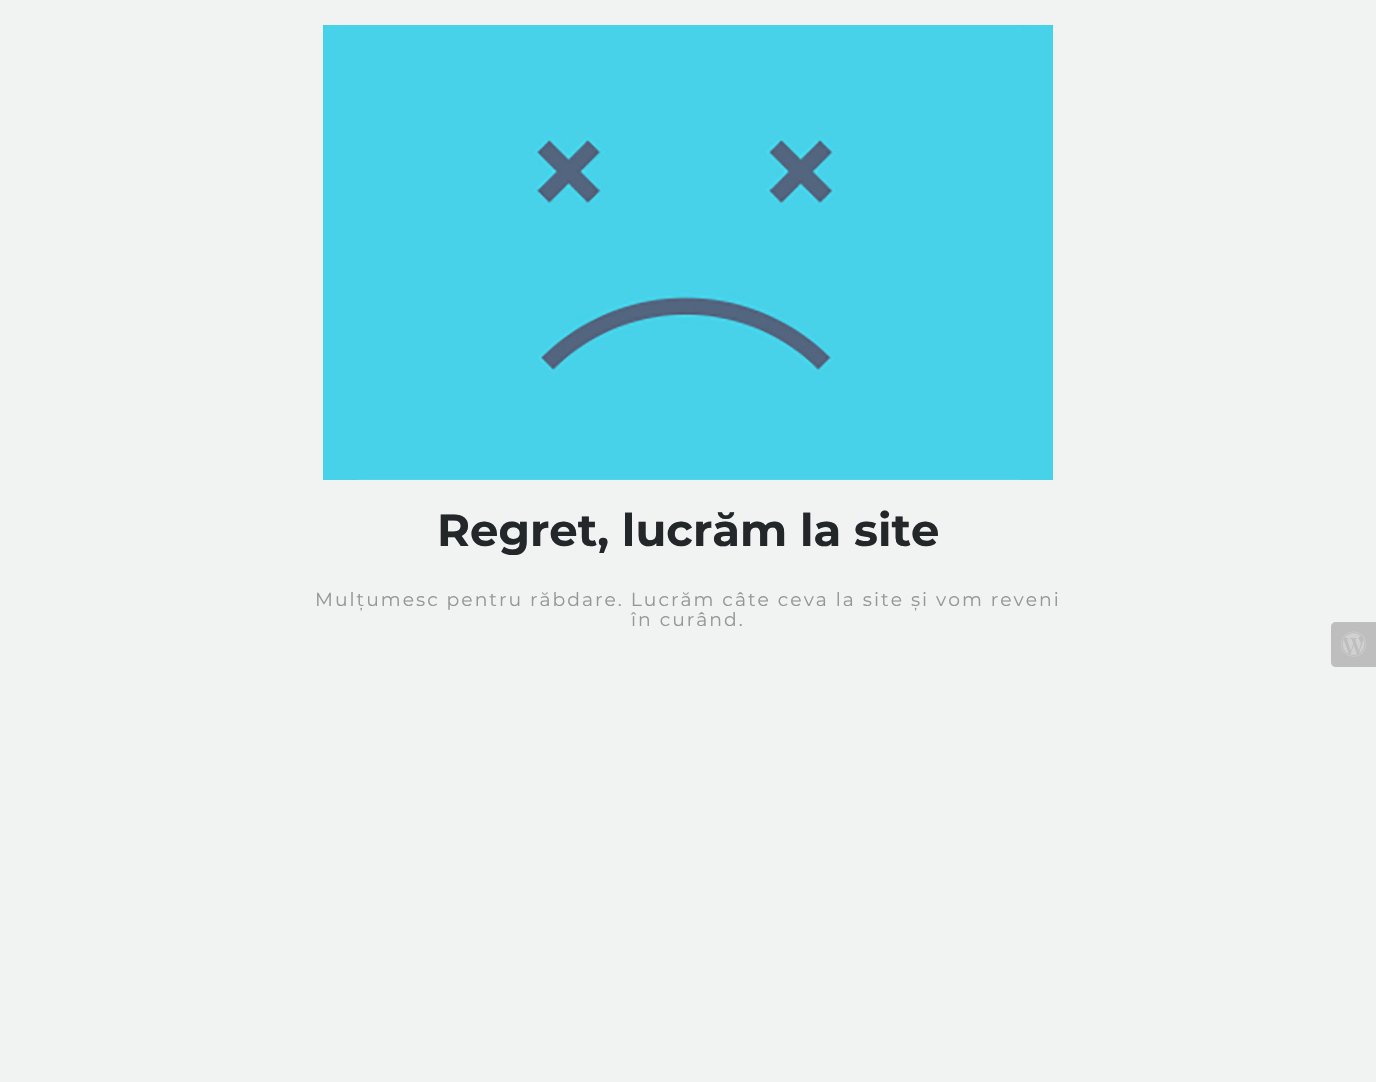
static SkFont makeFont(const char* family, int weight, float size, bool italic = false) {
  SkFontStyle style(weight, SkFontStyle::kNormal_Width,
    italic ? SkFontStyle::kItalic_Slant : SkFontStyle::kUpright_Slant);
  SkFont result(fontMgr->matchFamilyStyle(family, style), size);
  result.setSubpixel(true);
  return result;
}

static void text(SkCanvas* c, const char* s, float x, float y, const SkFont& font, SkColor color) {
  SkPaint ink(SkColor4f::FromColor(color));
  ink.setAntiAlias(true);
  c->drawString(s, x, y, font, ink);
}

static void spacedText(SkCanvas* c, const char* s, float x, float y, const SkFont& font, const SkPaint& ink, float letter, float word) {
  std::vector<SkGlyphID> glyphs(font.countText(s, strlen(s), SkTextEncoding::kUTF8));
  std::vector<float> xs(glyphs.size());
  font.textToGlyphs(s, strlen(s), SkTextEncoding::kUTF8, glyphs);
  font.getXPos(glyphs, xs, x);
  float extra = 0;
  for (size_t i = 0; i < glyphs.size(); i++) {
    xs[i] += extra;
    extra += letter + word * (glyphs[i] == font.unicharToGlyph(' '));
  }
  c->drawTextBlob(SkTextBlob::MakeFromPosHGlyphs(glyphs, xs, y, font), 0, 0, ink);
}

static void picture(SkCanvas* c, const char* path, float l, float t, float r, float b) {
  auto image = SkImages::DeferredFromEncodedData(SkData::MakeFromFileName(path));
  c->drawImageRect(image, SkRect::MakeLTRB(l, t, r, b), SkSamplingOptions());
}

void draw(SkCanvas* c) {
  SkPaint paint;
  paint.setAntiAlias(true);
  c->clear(0xfff1f2f2);
  picture(c, "img_01.png", 323, 25, 1053, 480);
  SkFont face1 = makeFont("Montserrat", 100, 45);
  text(c, "Regret, lucrăm la site", 437, 546, face1, 0xff23272a);
  SkFont face2 = makeFont("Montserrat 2", 100, 18.75f);
  paint.setColor(0xff949697);
  spacedText(c, "Mulțumesc pentru răbdare. Lucrăm câte ceva la site și vom reveni", 315, 606, face2, paint, 2, 0);
  spacedText(c, "în curând.", 631, 626, face2, paint, 2, 0);
  paint.setColor(0xffbebebe);
  c->drawPath(SkPathBuilder().moveTo(1336, 622).lineTo(1376, 622).lineTo(1376, 667).lineTo(1336, 667).cubicTo(1333, 667, 1331, 665, 1331, 662).lineTo(1331, 627).cubicTo(1331, 624, 1333, 622, 1336, 622).close().detach(), paint);
  picture(c, "img_02.png", 1341, 631, 1366, 657);
}
